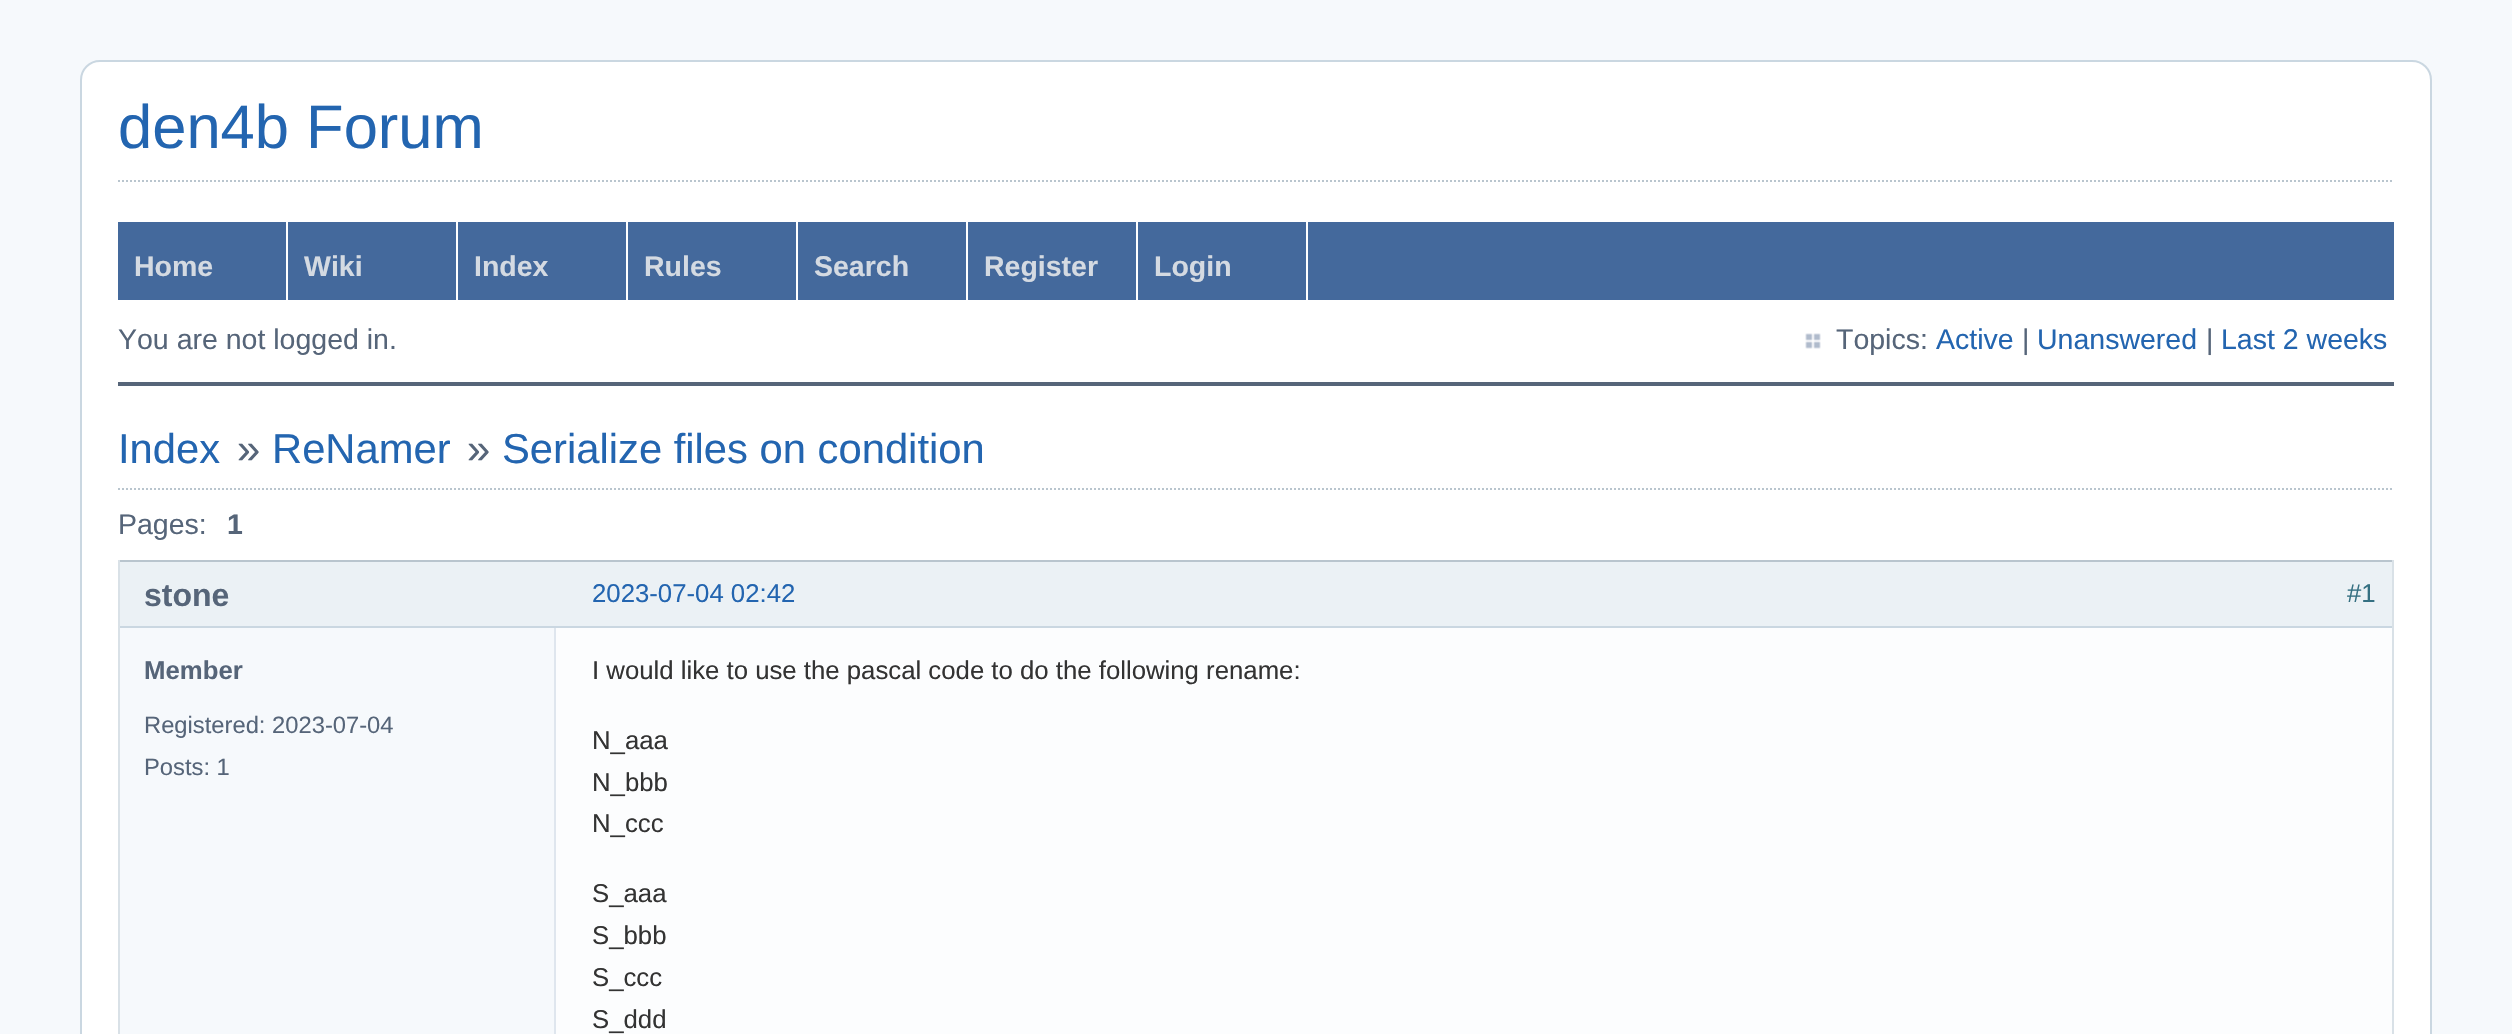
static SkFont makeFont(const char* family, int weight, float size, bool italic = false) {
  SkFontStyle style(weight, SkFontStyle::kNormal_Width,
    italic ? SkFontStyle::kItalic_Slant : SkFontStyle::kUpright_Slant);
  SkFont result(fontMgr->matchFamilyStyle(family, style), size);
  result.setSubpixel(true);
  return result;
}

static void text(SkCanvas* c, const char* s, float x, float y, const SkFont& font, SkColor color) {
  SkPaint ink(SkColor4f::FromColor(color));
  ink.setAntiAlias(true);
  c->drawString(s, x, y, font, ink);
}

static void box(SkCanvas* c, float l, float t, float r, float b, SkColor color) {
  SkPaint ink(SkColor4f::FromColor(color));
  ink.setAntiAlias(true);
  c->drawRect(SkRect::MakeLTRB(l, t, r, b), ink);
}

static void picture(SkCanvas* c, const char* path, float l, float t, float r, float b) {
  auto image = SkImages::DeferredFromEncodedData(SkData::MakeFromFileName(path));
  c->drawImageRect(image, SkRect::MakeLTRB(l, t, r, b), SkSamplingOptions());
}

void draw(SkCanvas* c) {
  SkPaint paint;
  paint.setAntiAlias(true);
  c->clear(0xfff6f9fc);
  paint.setColor(0xffffffff);
  c->drawRoundRect(SkRect::MakeLTRB(81, 61, 2431, 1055), 19, 19, paint);
  paint.setStyle(SkPaint::kStroke_Style);
  paint.setStrokeWidth(2);
  paint.setColor(0xffcad7e1);
  c->drawRoundRect(SkRect::MakeLTRB(81, 61, 2431, 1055), 19, 19, paint);
  SkFont face1 = makeFont("Liberation Sans", 400, 61.5f);
  text(c, "den4b Forum", 118, 148, face1, 0xff2365b0);
  paint.setColor(0xffb9c5ce);
  paint.setPathEffect(SkDashPathEffect::Make({{2, 2}}, 0));
  c->drawPath(SkPathBuilder().moveTo(118, 181).lineTo(2394, 181).detach(), paint);
  paint.setPathEffect(nullptr);
  box(c, 118, 222, 2394, 300, 0xff44699c);
  box(c, 286, 222, 288, 300, 0xffffffff);
  SkFont face2 = makeFont("Liberation Sans", 700, 28.5f);
  text(c, "Home", 134, 276, face2, 0xffd4dae2);
  box(c, 456, 222, 458, 300, 0xffffffff);
  text(c, "Wiki", 304, 276, face2, 0xffd4dae2);
  box(c, 626, 222, 628, 300, 0xffffffff);
  text(c, "Index", 474, 276, face2, 0xffd4dae2);
  box(c, 796, 222, 798, 300, 0xffffffff);
  text(c, "Rules", 644, 276, face2, 0xffd4dae2);
  box(c, 966, 222, 968, 300, 0xffffffff);
  text(c, "Search", 814, 276, face2, 0xffd4dae2);
  box(c, 1136, 222, 1138, 300, 0xffffffff);
  text(c, "Register", 984, 276, face2, 0xffd4dae2);
  box(c, 1306, 222, 1308, 300, 0xffffffff);
  text(c, "Login", 1154, 276, face2, 0xffd4dae2);
  SkFont face3 = makeFont("Liberation Sans", 400, 28.5f);
  text(c, "You are not logged in.", 118, 349, face3, 0xff566579);
  picture(c, "img_01.png", 1805, 333, 1821, 349);
  text(c, "Topics:", 1836, 349, face3, 0xff566579);
  text(c, "Active", 1936, 349, face3, 0xff2365b0);
  text(c, "|", 2022, 349, face3, 0xff566579);
  text(c, "Unanswered", 2037, 349, face3, 0xff2365b0);
  text(c, "|", 2206, 349, face3, 0xff566579);
  text(c, "Last 2 weeks", 2221, 349, face3, 0xff2365b0);
  box(c, 118, 382, 2394, 386, 0xff566579);
  SkFont face4 = makeFont("Liberation Sans", 400, 41.75f);
  text(c, "Index", 118, 463, face4, 0xff2365b0);
  text(c, "»", 237, 463, face4, 0xff566579);
  text(c, "ReNamer", 272, 463, face4, 0xff2365b0);
  text(c, "»", 467, 463, face4, 0xff566579);
  text(c, "Serialize files on condition", 502, 463, face4, 0xff2365b0);
  paint.setPathEffect(SkDashPathEffect::Make({{2, 2}}, 0));
  c->drawPath(SkPathBuilder().moveTo(118, 489).lineTo(2394, 489).detach(), paint);
  paint.setPathEffect(nullptr);
  text(c, "Pages:", 118, 534, face3, 0xff566579);
  text(c, "1", 227, 534, face2, 0xff566579);
  box(c, 120, 628, 554, 1034, 0xfff6f9fc);
  box(c, 118, 560, 2394, 562, 0xffb9c5ce);
  box(c, 2392, 560, 2394, 1034, 0xffd9e1e7);
  box(c, 118, 560, 120, 1034, 0xffd9e1e7);
  box(c, 120, 562, 2392, 626, 0xffebf1f5);
  box(c, 120, 626, 2392, 628, 0xffcad7e1);
  SkFont face5 = makeFont("Liberation Sans", 400, 25.75f);
  text(c, "2023-07-04 02:42", 592, 602, face5, 0xff2365b0);
  text(c, "#1", 2347, 602, face5, 0xff357082);
  box(c, 556, 628, 2392, 1034, 0xfffcfdfe);
  box(c, 554, 628, 556, 1034, 0xffdfe6ee);
  SkFont face6 = makeFont("Liberation Sans", 700, 32);
  text(c, "stone", 144, 606, face6, 0xff566579);
  SkFont face7 = makeFont("Liberation Sans", 700, 25.75f);
  text(c, "Member", 144, 679, face7, 0xff566579);
  SkFont face8 = makeFont("Liberation Sans", 400, 23.75f);
  text(c, "Registered: 2023-07-04", 144, 733, face8, 0xff566579);
  text(c, "Posts: 1", 144, 775, face8, 0xff566579);
  text(c, "I would like to use the pascal code to do the following rename:", 592, 679, face5, 0xff333333);
  text(c, "N_aaa", 592, 749, face5, 0xff333333);
  text(c, "N_bbb", 592, 791, face5, 0xff333333);
  text(c, "N_ccc", 592, 832, face5, 0xff333333);
  text(c, "S_aaa", 592, 902, face5, 0xff333333);
  text(c, "S_bbb", 592, 944, face5, 0xff333333);
  text(c, "S_ccc", 592, 986, face5, 0xff333333);
  text(c, "S_ddd", 592, 1028, face5, 0xff333333);
}
